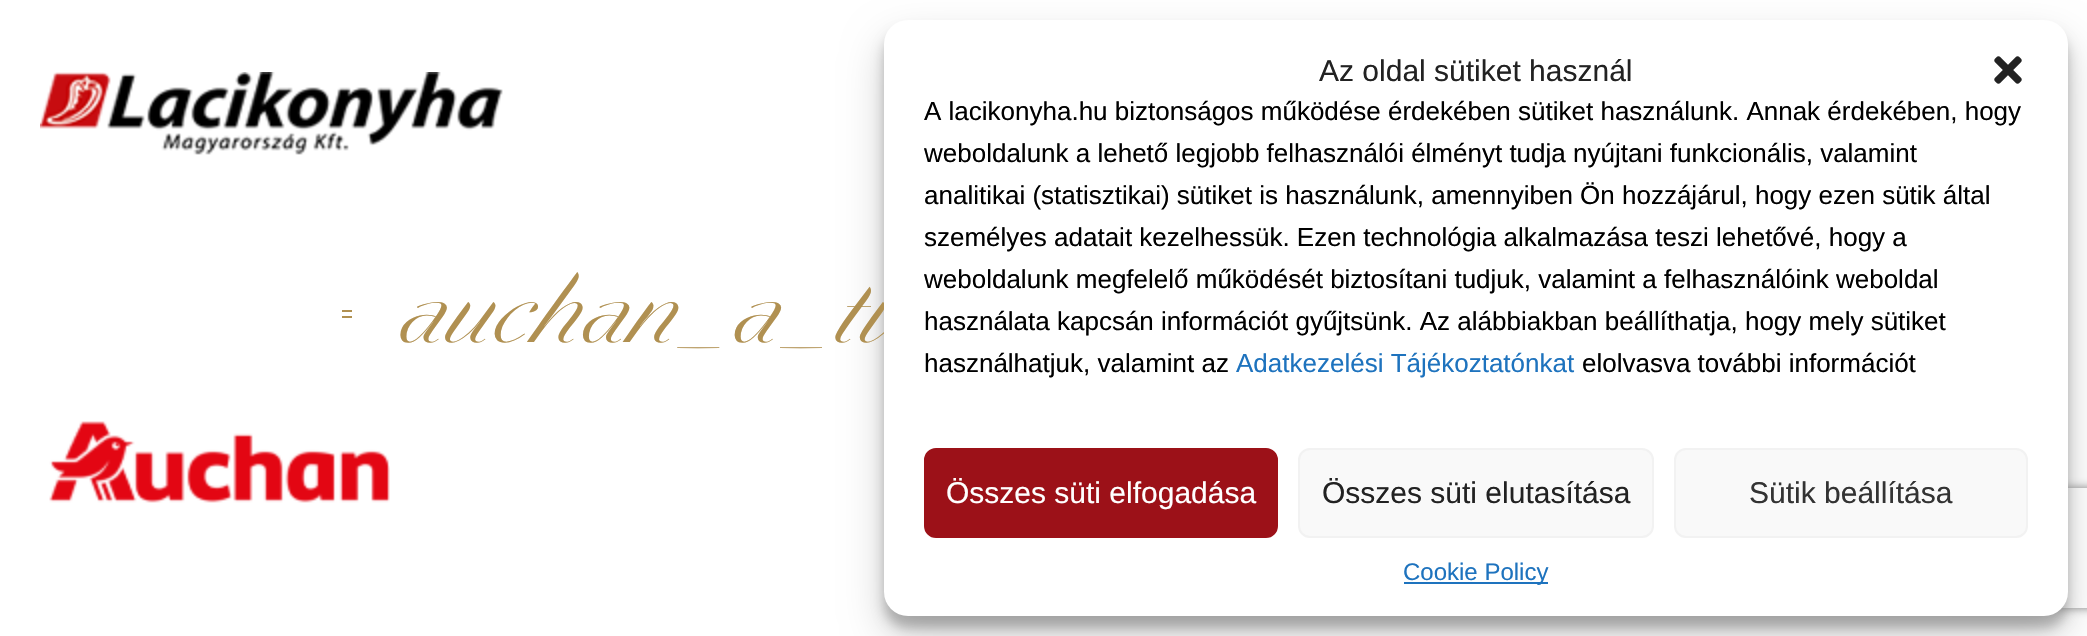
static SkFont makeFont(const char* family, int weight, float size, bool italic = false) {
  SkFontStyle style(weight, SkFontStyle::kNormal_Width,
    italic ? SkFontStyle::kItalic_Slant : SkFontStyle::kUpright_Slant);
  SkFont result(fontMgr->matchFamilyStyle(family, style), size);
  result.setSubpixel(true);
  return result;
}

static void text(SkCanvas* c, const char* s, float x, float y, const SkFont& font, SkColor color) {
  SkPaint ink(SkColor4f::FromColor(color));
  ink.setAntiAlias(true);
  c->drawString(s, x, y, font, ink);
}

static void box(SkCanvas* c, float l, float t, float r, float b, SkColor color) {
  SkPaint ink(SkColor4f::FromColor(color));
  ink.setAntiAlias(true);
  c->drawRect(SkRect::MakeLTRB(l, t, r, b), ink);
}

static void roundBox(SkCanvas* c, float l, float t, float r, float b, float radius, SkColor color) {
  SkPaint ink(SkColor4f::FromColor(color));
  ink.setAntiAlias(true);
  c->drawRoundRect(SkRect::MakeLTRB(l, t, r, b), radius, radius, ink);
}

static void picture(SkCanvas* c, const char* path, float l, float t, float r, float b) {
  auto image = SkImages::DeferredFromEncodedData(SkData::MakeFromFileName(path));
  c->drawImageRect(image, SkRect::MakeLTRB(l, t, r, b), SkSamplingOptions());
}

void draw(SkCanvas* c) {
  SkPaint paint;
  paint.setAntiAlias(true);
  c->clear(0xffffffff);
  picture(c, "img_01.png", 40, 72, 503, 155);
  paint.setColor(0x3b000000);
  paint.setMaskFilter(SkMaskFilter::MakeBlur(kNormal_SkBlurStyle, 6));
  c->drawRoundRect(SkRect::MakeLTRB(884, 32, 2068, 628), 24, 24, paint);
  paint.setMaskFilter(nullptr);
  paint.setColor(0x30000000);
  paint.setMaskFilter(SkMaskFilter::MakeBlur(kNormal_SkBlurStyle, 20));
  c->drawRoundRect(SkRect::MakeLTRB(884, 40, 2068, 636), 24, 24, paint);
  paint.setMaskFilter(nullptr);
  SkFont face1 = makeFont("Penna", 400, 140);
  text(c, "auchan_a_tu", 392, 342, face1, 0xffb09051);
  c->save();
  c->clipPath(SkPathBuilder(SkPathFillType::kEvenOdd).moveTo(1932, 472).lineTo(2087, 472).lineTo(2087, 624).lineTo(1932, 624).close().moveTo(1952, 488).lineTo(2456, 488).cubicTo(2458, 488, 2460, 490, 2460, 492).lineTo(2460, 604).cubicTo(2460, 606, 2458, 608, 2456, 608).lineTo(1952, 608).cubicTo(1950, 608, 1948, 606, 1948, 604).lineTo(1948, 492).cubicTo(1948, 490, 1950, 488, 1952, 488).close().detach(), true);
  paint.setColor(0xff808080);
  paint.setMaskFilter(SkMaskFilter::MakeBlur(kNormal_SkBlurStyle, 5));
  c->drawRoundRect(SkRect::MakeLTRB(1948, 488, 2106, 608), 4, 4, paint);
  paint.setMaskFilter(nullptr);
  c->restore();
  roundBox(c, 884, 20, 2068, 616, 24, 0xffffffff);
  SkFont face2 = makeFont("Liberation Sans", 400, 30);
  text(c, "Az oldal sütiket használ", 1319, 81, face2, 0xff222222);
  picture(c, "img_02.png", 1994, 56, 2022, 84);
  SkFont face3 = makeFont("Liberation Sans", 400, 26);
  text(c, "A lacikonyha.hu biztonságos működése érdekében sütiket használunk. Annak érdekében, hogy", 924, 120, face3, 0xff000000);
  text(c, "weboldalunk a lehető legjobb felhasználói élményt tudja nyújtani funkcionális, valamint", 924, 162, face3, 0xff000000);
  text(c, "analitikai (statisztikai) sütiket is használunk, amennyiben Ön hozzájárul, hogy ezen sütik által", 924, 204, face3, 0xff000000);
  text(c, "személyes adatait kezelhessük. Ezen technológia alkalmazása teszi lehetővé, hogy a", 924, 246, face3, 0xff000000);
  text(c, "weboldalunk megfelelő működését biztosítani tudjuk, valamint a felhasználóink weboldal", 924, 288, face3, 0xff000000);
  text(c, "használata kapcsán információt gyűjtsünk. Az alábbiakban beállíthatja, hogy mely sütiket", 924, 330, face3, 0xff000000);
  text(c, "használhatjuk, valamint az", 924, 372, face3, 0xff000000);
  text(c, "Adatkezelési Tájékoztatónkat", 1236, 372, face3, 0xff1e73be);
  text(c, "elolvasva további információt", 1582, 372, face3, 0xff000000);
  paint.setColor(0xff9c1118);
  c->drawRoundRect(SkRect::MakeLTRB(925, 449, 1277, 537), 11, 11, paint);
  paint.setStyle(SkPaint::kStroke_Style);
  paint.setStrokeWidth(2);
  c->drawRoundRect(SkRect::MakeLTRB(925, 449, 1277, 537), 11, 11, paint);
  text(c, "Összes süti elfogadása", 946, 503, face2, 0xffffffff);
  paint.setStyle(SkPaint::kFill_Style);
  paint.setColor(0xfff9f9f9);
  c->drawRoundRect(SkRect::MakeLTRB(1299, 449, 1653, 537), 11, 11, paint);
  paint.setStyle(SkPaint::kStroke_Style);
  paint.setColor(0xfff2f2f2);
  c->drawRoundRect(SkRect::MakeLTRB(1299, 449, 1653, 537), 11, 11, paint);
  text(c, "Összes süti elutasítása", 1322, 503, face2, 0xff222222);
  paint.setStyle(SkPaint::kFill_Style);
  paint.setColor(0xfff9f9f9);
  c->drawRoundRect(SkRect::MakeLTRB(1675, 449, 2027, 537), 11, 11, paint);
  paint.setStyle(SkPaint::kStroke_Style);
  paint.setColor(0xfff2f2f2);
  c->drawRoundRect(SkRect::MakeLTRB(1675, 449, 2027, 537), 11, 11, paint);
  text(c, "Sütik beállítása", 1749, 503, face2, 0xff333333);
  box(c, 1404, 582, 1548, 584, 0xff1e73be);
  SkFont face4 = makeFont("Liberation Sans", 400, 24);
  text(c, "Cookie Policy", 1403, 580, face4, 0xff1e73be);
  box(c, 342, 310, 352, 312, 0xffb09051);
  box(c, 342, 316, 352, 318, 0xffb09051);
  picture(c, "img_03.png", 49, 421, 390, 503);
}
